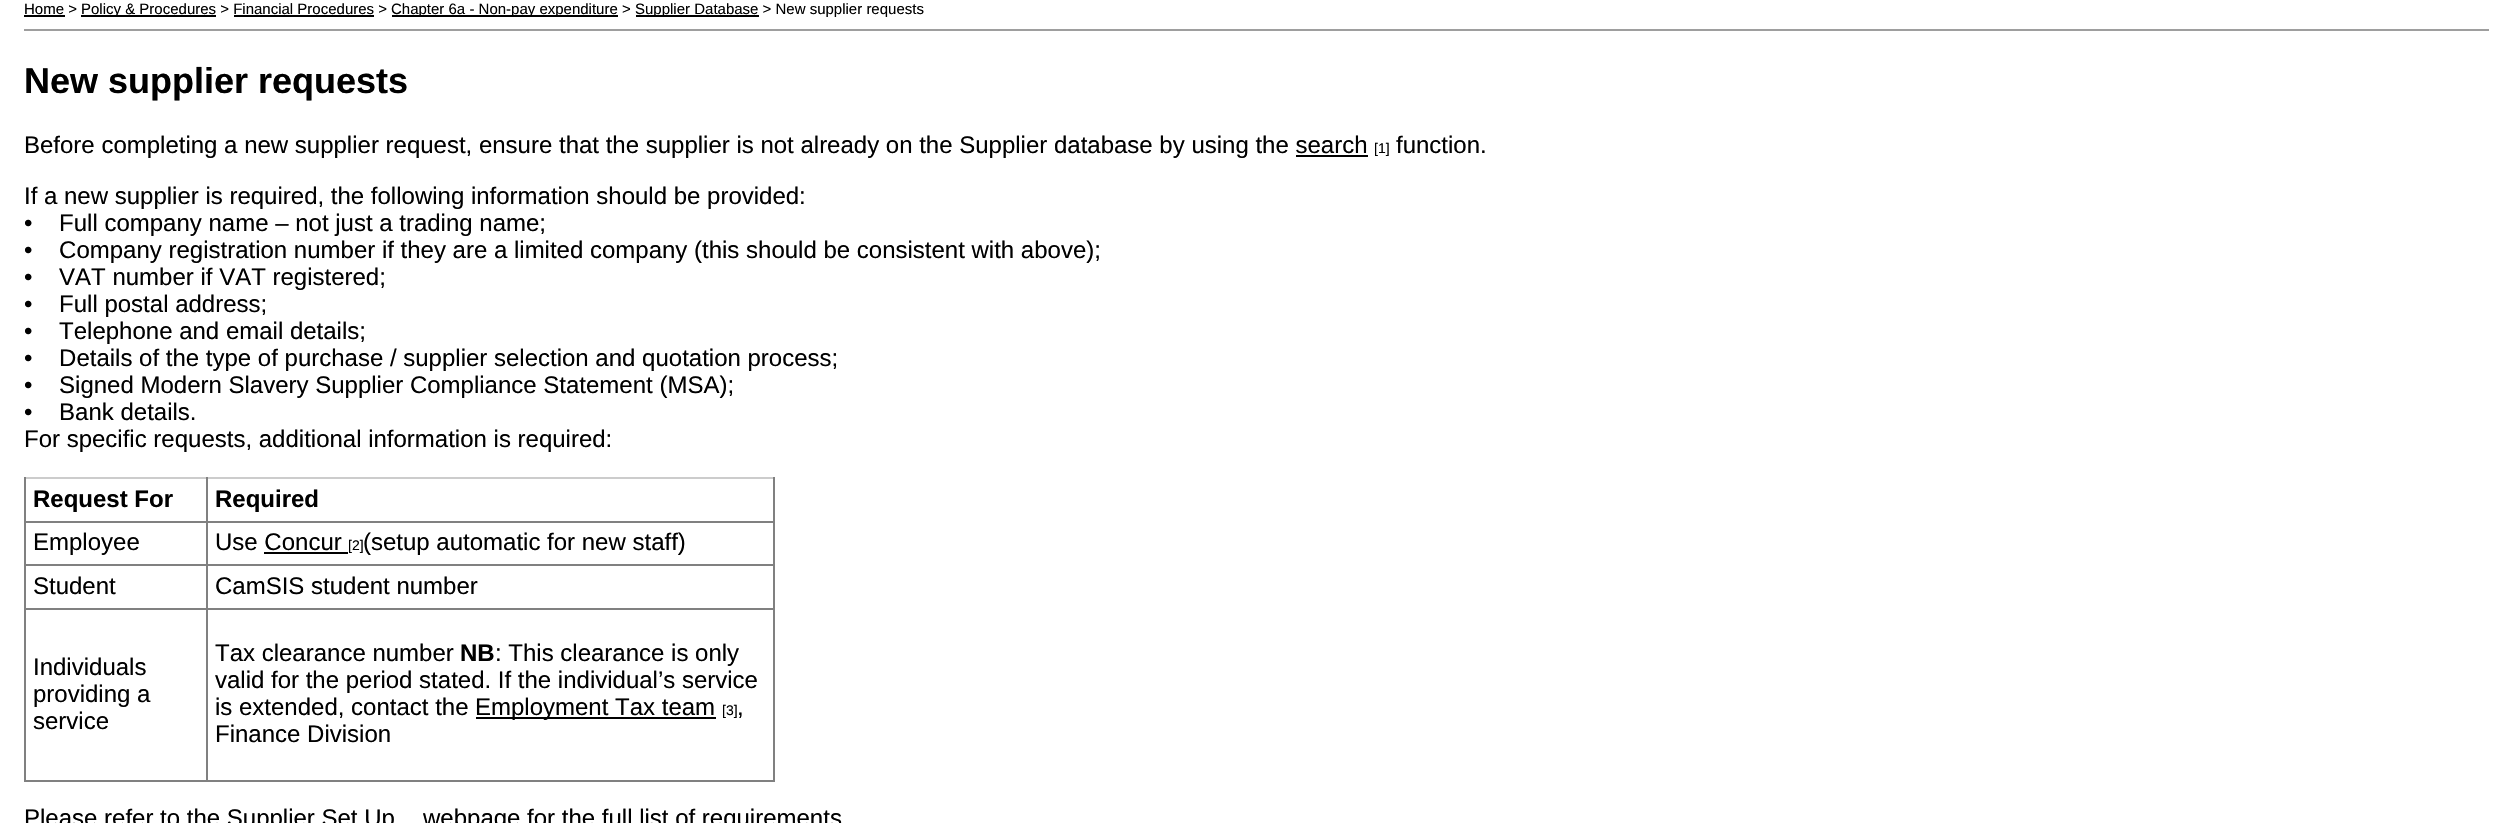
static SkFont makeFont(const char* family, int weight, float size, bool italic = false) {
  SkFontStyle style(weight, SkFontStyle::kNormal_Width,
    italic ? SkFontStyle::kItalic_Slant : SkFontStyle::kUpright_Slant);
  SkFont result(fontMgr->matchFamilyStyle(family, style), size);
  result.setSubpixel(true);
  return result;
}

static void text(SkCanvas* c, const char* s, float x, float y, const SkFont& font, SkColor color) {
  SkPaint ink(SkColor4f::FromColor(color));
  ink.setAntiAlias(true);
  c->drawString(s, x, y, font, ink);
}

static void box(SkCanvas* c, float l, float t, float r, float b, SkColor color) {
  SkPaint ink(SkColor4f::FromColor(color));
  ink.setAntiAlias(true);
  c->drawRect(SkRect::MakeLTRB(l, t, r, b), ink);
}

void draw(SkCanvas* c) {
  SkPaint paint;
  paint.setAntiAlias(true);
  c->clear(0xffffffff);
  SkFont face1 = makeFont("Liberation Sans", 400, 15);
  text(c, "Home >", 24, 14, face1, 0xff000000);
  box(c, 24, 15, 65, 17, 0xff000000);
  box(c, 81, 15, 216, 17, 0xff000000);
  text(c, "Policy & Procedures > Financial Procedures >", 81, 14, face1, 0xff000000);
  box(c, 392, 15, 618, 17, 0xff000000);
  text(c, "Chapter 6a - Non-pay expenditure >", 391, 14, face1, 0xff000000);
  box(c, 636, 15, 759, 17, 0xff000000);
  text(c, "Supplier Database > New supplier requests", 635, 14, face1, 0xff000000);
  box(c, 234, 15, 374, 17, 0xff000000);
  box(c, 24, 29, 2489, 31, 0xff9e9e9e);
  SkFont face2 = makeFont("Liberation Sans", 700, 36);
  text(c, "New supplier requests", 24, 93, face2, 0xff000000);
  SkFont face3 = makeFont("Liberation Sans", 400, 24);
  text(c, "Before completing a new supplier request, ensure that the supplier is not already on the Supplier database by using the search", 24, 153, face3, 0xff000000);
  SkFont face4 = makeFont("Liberation Sans", 400, 14);
  text(c, "[1]", 1374, 153, face4, 0xff000000);
  text(c, "function.", 1396, 153, face3, 0xff000000);
  box(c, 1296, 155, 1368, 157, 0xff000000);
  text(c, "If a new supplier is required, the following information should be provided:", 24, 204, face3, 0xff000000);
  text(c, "•    Full company name – not just a trading name;", 24, 231, face3, 0xff000000);
  text(c, "•    Company registration number if they are a limited company (this should be consistent with above);", 24, 258, face3, 0xff000000);
  text(c, "•    VAT number if VAT registered;", 24, 285, face3, 0xff000000);
  text(c, "•    Full postal address;", 24, 312, face3, 0xff000000);
  text(c, "•    Telephone and email details;", 24, 339, face3, 0xff000000);
  text(c, "•    Details of the type of purchase / supplier selection and quotation process;", 24, 366, face3, 0xff000000);
  text(c, "•    Signed Modern Slavery Supplier Compliance Statement (MSA);", 24, 393, face3, 0xff000000);
  text(c, "•    Bank details.", 24, 420, face3, 0xff000000);
  text(c, "For specific requests, additional information is required:", 24, 447, face3, 0xff000000);
  box(c, 24, 780, 774, 782, 0xff808080);
  box(c, 208, 477, 774, 479, 0xffcccccc);
  box(c, 24, 477, 207, 479, 0xffcccccc);
  box(c, 206, 608, 208, 782, 0xff808080);
  box(c, 773, 477, 775, 782, 0xff808080);
  box(c, 206, 608, 774, 610, 0xff808080);
  box(c, 206, 564, 208, 609, 0xff808080);
  box(c, 206, 564, 774, 566, 0xff808080);
  box(c, 206, 521, 208, 566, 0xff808080);
  box(c, 206, 521, 774, 523, 0xff808080);
  box(c, 206, 477, 208, 522, 0xff808080);
  box(c, 24, 608, 26, 782, 0xff808080);
  box(c, 24, 608, 207, 610, 0xff808080);
  box(c, 24, 564, 26, 609, 0xff808080);
  box(c, 24, 564, 207, 566, 0xff808080);
  box(c, 24, 521, 26, 566, 0xff808080);
  box(c, 24, 521, 207, 523, 0xff808080);
  box(c, 24, 477, 26, 522, 0xff808080);
  SkFont face5 = makeFont("Liberation Sans", 700, 24);
  text(c, "Request For", 33, 507, face5, 0xff000000);
  text(c, "Required", 215, 507, face5, 0xff000000);
  text(c, "Employee", 33, 550, face3, 0xff000000);
  text(c, "Use Concur", 215, 550, face3, 0xff000000);
  text(c, "[2]", 348, 550, face4, 0xff000000);
  text(c, "(setup automatic for new staff)", 363, 550, face3, 0xff000000);
  box(c, 264, 552, 348, 554, 0xff000000);
  text(c, "Student", 33, 594, face3, 0xff000000);
  text(c, "CamSIS student number", 215, 594, face3, 0xff000000);
  text(c, "Individuals", 33, 675, face3, 0xff000000);
  text(c, "providing a", 33, 702, face3, 0xff000000);
  text(c, "service", 33, 729, face3, 0xff000000);
  text(c, "Tax clearance number", 215, 661, face3, 0xff000000);
  text(c, "NB", 460, 661, face5, 0xff000000);
  text(c, ": This clearance is only", 495, 661, face3, 0xff000000);
  text(c, "valid for the period stated. If the individual’s service", 215, 688, face3, 0xff000000);
  text(c, "is extended, contact the", 215, 715, face3, 0xff000000);
  box(c, 476, 717, 716, 719, 0xff000000);
  text(c, "Employment Tax team", 475, 715, face3, 0xff000000);
  text(c, "[3]", 722, 715, face4, 0xff000000);
  text(c, ",", 737, 715, face3, 0xff000000);
  text(c, "Finance Division", 215, 742, face3, 0xff000000);
  text(c, "Please refer to the Supplier Set Up", 24, 826, face3, 0xff000000);
  text(c, "webpage for the full list of requirements", 423, 826, face3, 0xff000000);
}
